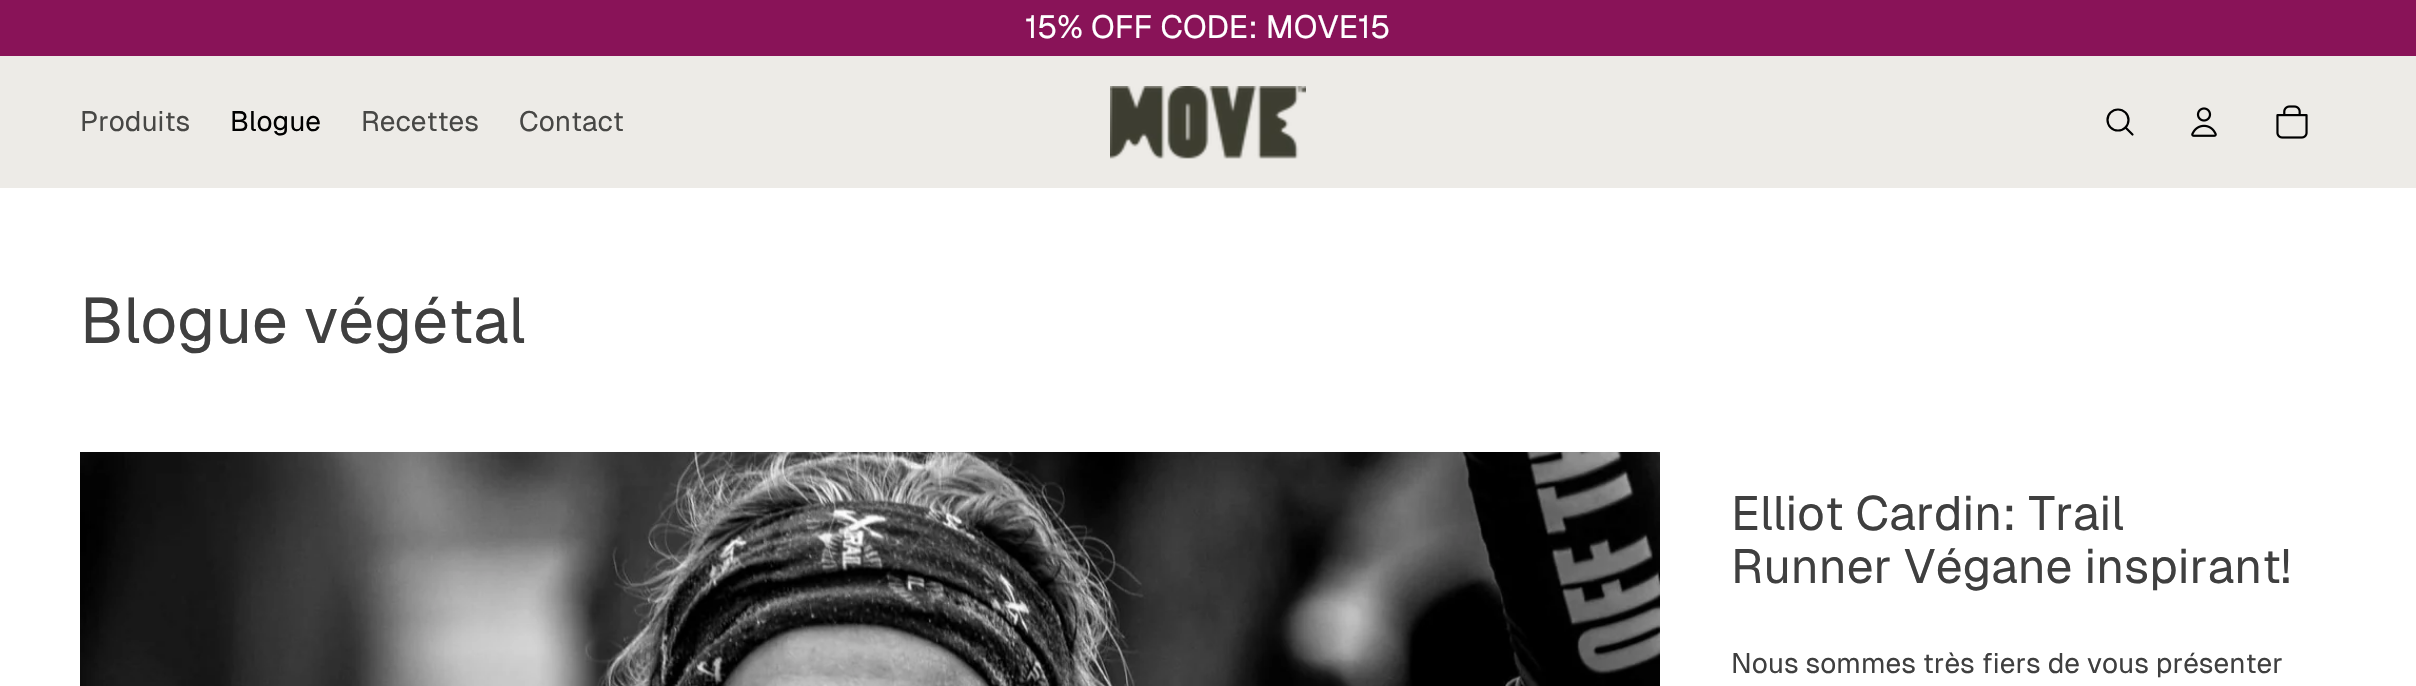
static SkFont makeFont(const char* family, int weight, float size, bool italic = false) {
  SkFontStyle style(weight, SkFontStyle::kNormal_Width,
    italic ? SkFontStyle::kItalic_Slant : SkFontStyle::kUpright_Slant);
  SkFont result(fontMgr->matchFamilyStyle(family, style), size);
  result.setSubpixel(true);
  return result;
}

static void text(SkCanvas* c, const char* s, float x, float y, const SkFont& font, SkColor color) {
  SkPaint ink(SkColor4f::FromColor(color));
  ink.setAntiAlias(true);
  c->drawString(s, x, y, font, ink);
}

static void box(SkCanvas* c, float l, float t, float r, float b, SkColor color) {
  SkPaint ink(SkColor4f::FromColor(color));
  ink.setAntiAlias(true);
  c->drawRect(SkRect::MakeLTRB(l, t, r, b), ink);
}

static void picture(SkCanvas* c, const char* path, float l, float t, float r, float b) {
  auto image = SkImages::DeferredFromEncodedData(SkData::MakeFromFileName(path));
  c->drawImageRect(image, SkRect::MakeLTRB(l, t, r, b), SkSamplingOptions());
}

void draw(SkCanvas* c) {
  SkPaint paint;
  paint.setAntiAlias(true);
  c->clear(0xffffffff);
  box(c, 0, 0, 2416, 56, 0xff891358);
  SkFont face1 = makeFont("Geist", 400, 32);
  text(c, "15% OFF CODE: MOVE15", 1025, 38, face1, 0xffffffff);
  box(c, 0, 56, 2416, 188, 0xffedebe7);
  SkFont face2 = makeFont("Geist", 400, 28);
  text(c, "Produits", 80, 131, face2, 0xff474745);
  text(c, "Blogue", 230, 131, face2, 0xff000000);
  text(c, "Recettes", 361, 131, face2, 0xff474745);
  text(c, "Contact", 519, 131, face2, 0xff474745);
  picture(c, "img_01.png", 1110, 86, 1306, 159);
  paint.setStyle(SkPaint::kStroke_Style);
  paint.setStrokeWidth(2.2f);
  paint.setColor(0xff000000);
  c->drawCircle(2118, 120, 10.5f, paint);
  paint.setStrokeCap(SkPaint::kRound_Cap);
  paint.setStrokeJoin(SkPaint::kRound_Join);
  c->drawPath(SkPathBuilder().moveTo(2125.5f, 127.5f).lineTo(2132.5f, 134.5f).detach(), paint);
  picture(c, "img_02.png", 2191, 107, 2217, 137);
  picture(c, "img_03.png", 2276, 105, 2308, 139);
  SkFont face3 = makeFont("Geist", 400, 64);
  text(c, "Blogue végétal", 80, 343, face3, 0xff3f3f3f);
  picture(c, "img_04.png", 80, 452, 1660, 686);
  SkFont face4 = makeFont("Geist", 400, 48);
  text(c, "Elliot Cardin: Trail", 1731, 530, face4, 0xff3f3f3f);
  text(c, "Runner Végane inspirant!", 1731, 583, face4, 0xff3f3f3f);
  text(c, "Nous sommes très fiers de vous présenter", 1731, 673, face2, 0xff3f3f3f);
}
